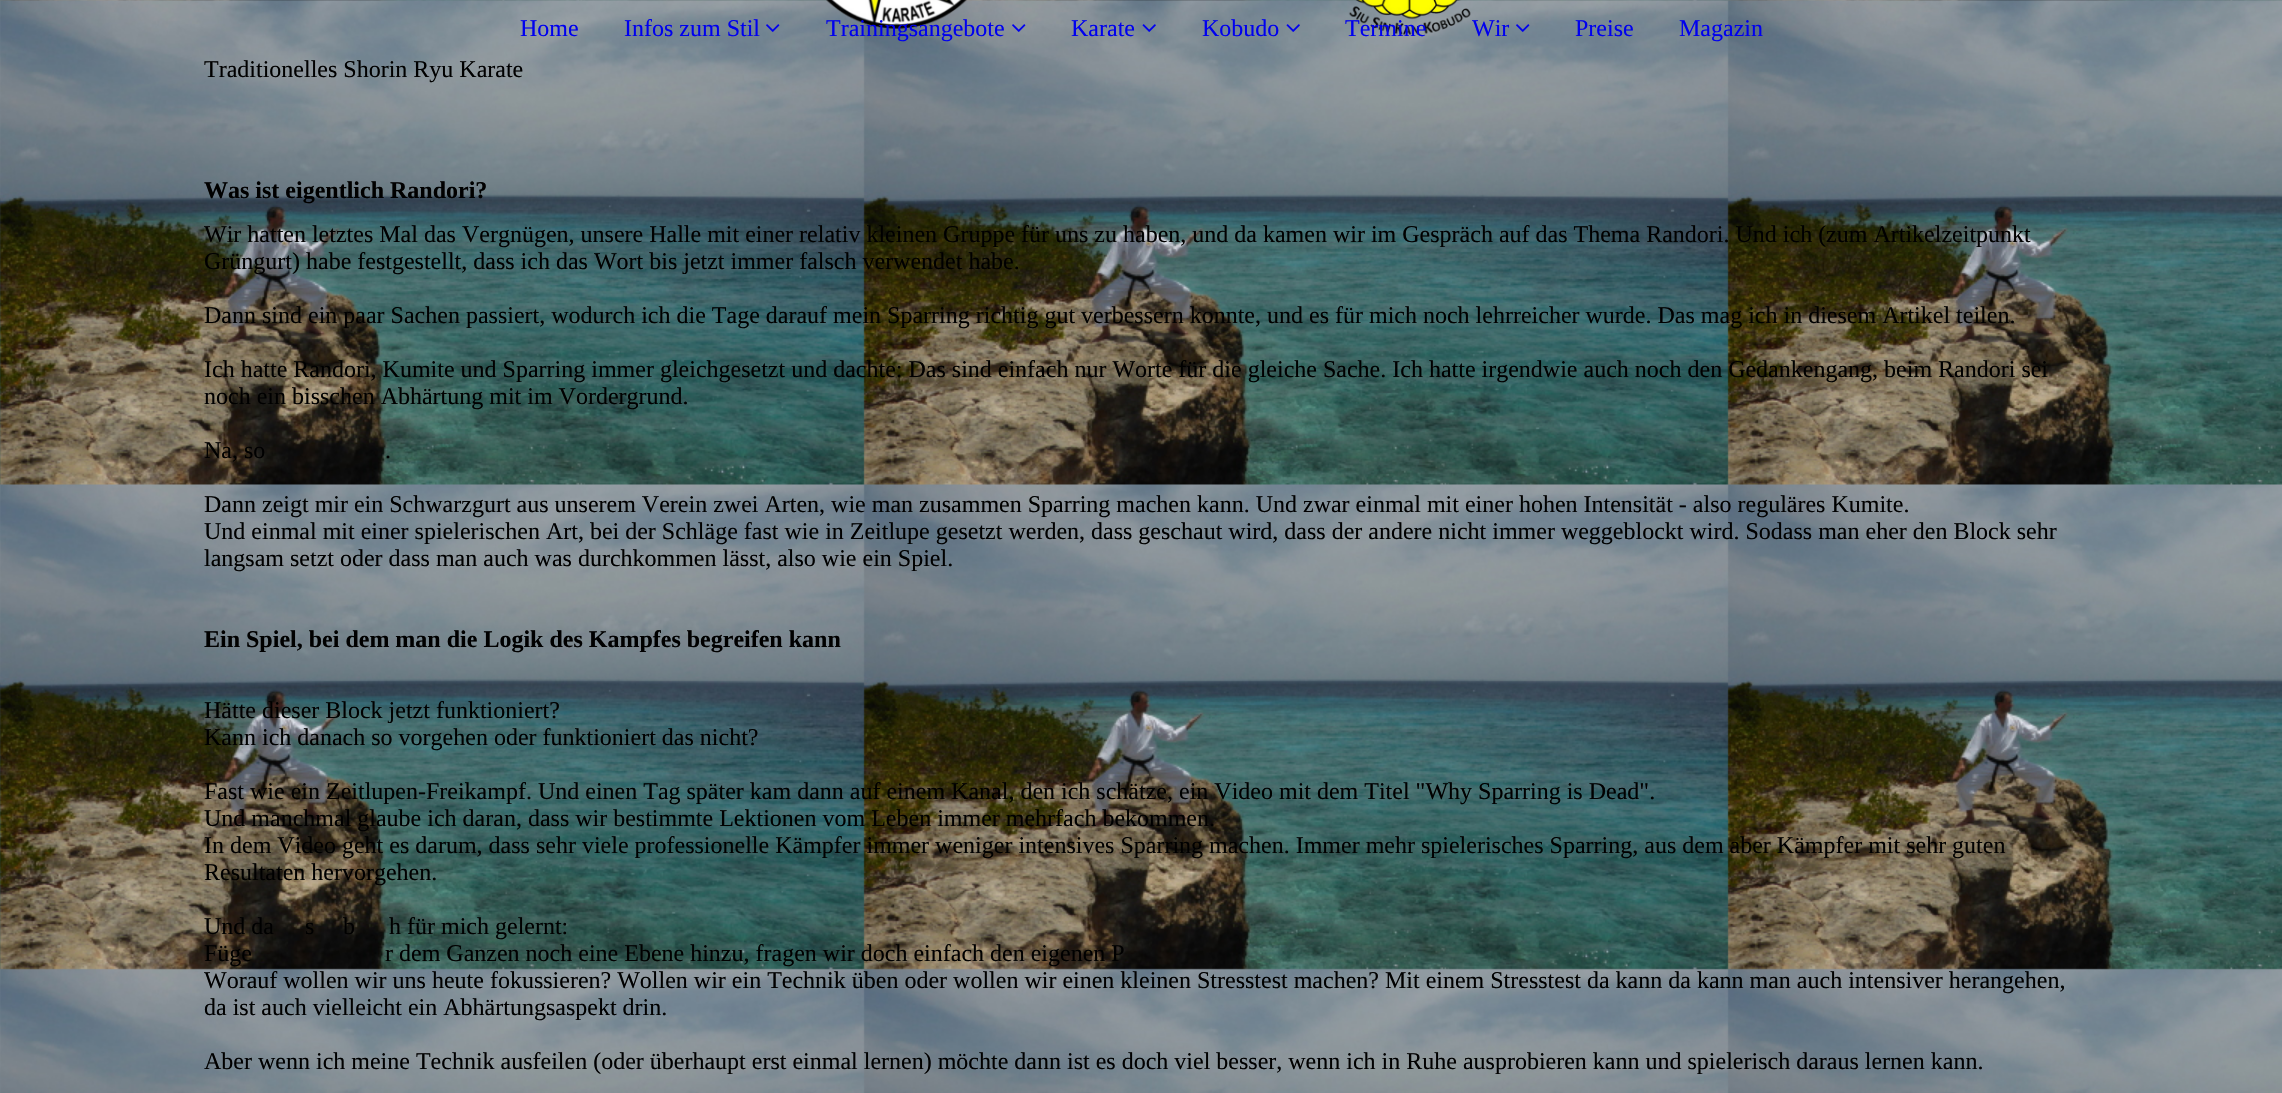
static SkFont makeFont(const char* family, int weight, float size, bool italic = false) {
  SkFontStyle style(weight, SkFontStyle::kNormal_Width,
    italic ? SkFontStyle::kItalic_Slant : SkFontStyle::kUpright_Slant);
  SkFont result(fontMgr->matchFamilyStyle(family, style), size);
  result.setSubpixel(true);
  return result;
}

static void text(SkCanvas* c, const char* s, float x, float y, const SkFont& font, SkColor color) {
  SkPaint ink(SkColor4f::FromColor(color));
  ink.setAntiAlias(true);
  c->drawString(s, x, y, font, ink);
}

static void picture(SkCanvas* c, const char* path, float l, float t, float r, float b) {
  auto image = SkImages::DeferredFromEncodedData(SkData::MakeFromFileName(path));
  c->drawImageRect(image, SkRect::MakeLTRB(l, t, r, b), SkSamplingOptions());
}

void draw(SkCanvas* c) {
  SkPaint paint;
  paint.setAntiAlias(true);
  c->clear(0xffffffff);
  picture(c, "img_01.png", 0, 0, 2282, 1093);
  SkFont face1 = makeFont("Liberation Serif", 400, 24);
  text(c, "Home", 520, 36, face1, 0xff0000ee);
  text(c, "Infos zum Stil", 624, 36, face1, 0xff0000ee);
  picture(c, "img_02.png", 766, 24, 780, 32);
  picture(c, "img_07.png", 826, 0, 1471, 35);
  text(c, "Trainingsangebote", 826, 36, face1, 0xff0000ee);
  picture(c, "img_03.png", 1012, 24, 1026, 32);
  text(c, "Karate", 1071, 36, face1, 0xff0000ee);
  picture(c, "img_04.png", 1142, 24, 1156, 32);
  text(c, "Kobudo", 1202, 36, face1, 0xff0000ee);
  picture(c, "img_05.png", 1286, 24, 1300, 32);
  text(c, "Termine", 1345, 36, face1, 0xff0000ee);
  text(c, "Wir", 1472, 36, face1, 0xff0000ee);
  picture(c, "img_06.png", 1516, 24, 1530, 32);
  text(c, "Preise", 1575, 36, face1, 0xff0000ee);
  text(c, "Magazin", 1679, 36, face1, 0xff0000ee);
  text(c, "Traditionelles Shorin Ryu Karate", 204, 77, face1, 0xff000000);
  SkFont face2 = makeFont("Liberation Serif", 700, 24);
  text(c, "Was ist eigentlich Randori?", 204, 198, face2, 0xff000000);
  text(c, "Wir hatten letztes Mal das Vergnügen, unsere Halle mit einer relativ kleinen Gruppe für uns zu haben, und da kamen wir im Gespräch auf das Thema Randori. Und ich (zum Artikelzeitpunkt", 204, 242, face1, 0xff000000);
  text(c, "Grüngurt) habe festgestellt, dass ich das Wort bis jetzt immer falsch verwendet habe.", 204, 269, face1, 0xff000000);
  text(c, "Dann sind ein paar Sachen passiert, wodurch ich die Tage darauf mein Sparring richtig gut verbessern konnte, und es für mich noch lehrreicher wurde. Das mag ich in diesem Artikel teilen.", 204, 323, face1, 0xff000000);
  text(c, "Ich hatte Randori, Kumite und Sparring immer gleichgesetzt und dachte: Das sind einfach nur Worte für die gleiche Sache. Ich hatte irgendwie auch noch den Gedankengang, beim Randori sei", 204, 377, face1, 0xff000000);
  text(c, "noch ein bisschen Abhärtung mit im Vordergrund.", 204, 404, face1, 0xff000000);
  text(c, "Na, so", 204, 458, face1, 0xff000000);
  text(c, ".", 385, 458, face1, 0xff000000);
  text(c, "Dann zeigt mir ein Schwarzgurt aus unserem Verein zwei Arten, wie man zusammen Sparring machen kann. Und zwar einmal mit einer hohen Intensität - also reguläres Kumite.", 204, 512, face1, 0xff000000);
  text(c, "Und einmal mit einer spielerischen Art, bei der Schläge fast wie in Zeitlupe gesetzt werden, dass geschaut wird, dass der andere nicht immer weggeblockt wird. Sodass man eher den Block sehr", 204, 539, face1, 0xff000000);
  text(c, "langsam setzt oder dass man auch was durchkommen lässt, also wie ein Spiel.", 204, 566, face1, 0xff000000);
  text(c, "Ein Spiel, bei dem man die Logik des Kampfes begreifen kann", 204, 647, face2, 0xff000000);
  text(c, "Hätte dieser Block jetzt funktioniert?", 204, 718, face1, 0xff000000);
  text(c, "Kann ich danach so vorgehen oder funktioniert das nicht?", 204, 745, face1, 0xff000000);
  text(c, "Fast wie ein Zeitlupen-Freikampf. Und einen Tag später kam dann auf einem Kanal, den ich schätze, ein Video mit dem Titel \"Why Sparring is Dead\".", 204, 799, face1, 0xff000000);
  text(c, "Und manchmal glaube ich daran, dass wir bestimmte Lektionen vom Leben immer mehrfach bekommen.", 204, 826, face1, 0xff000000);
  text(c, "In dem Video geht es darum, dass sehr viele professionelle Kämpfer immer weniger intensives Sparring machen. Immer mehr spielerisches Sparring, aus dem aber Kämpfer mit sehr guten", 204, 853, face1, 0xff000000);
  text(c, "Resultaten hervorgehen.", 204, 880, face1, 0xff000000);
  text(c, "Und da", 204, 934, face1, 0xff000000);
  text(c, "s", 305, 934, face1, 0xff000000);
  text(c, "b", 343, 934, face1, 0xff000000);
  text(c, "h für mich gelernt:", 389, 934, face1, 0xff000000);
  text(c, "Füge", 204, 961, face1, 0xff000000);
  text(c, "r dem Ganzen noch eine Ebene hinzu, fragen wir doch einfach den eigenen P", 385, 961, face1, 0xff000000);
  text(c, "Worauf wollen wir uns heute fokussieren? Wollen wir ein Technik üben oder wollen wir einen kleinen Stresstest machen? Mit einem Stresstest da kann da kann man auch intensiver herangehen,", 204, 988, face1, 0xff000000);
  text(c, "da ist auch vielleicht ein Abhärtungsaspekt drin.", 204, 1015, face1, 0xff000000);
  text(c, "Aber wenn ich meine Technik ausfeilen (oder überhaupt erst einmal lernen) möchte dann ist es doch viel besser, wenn ich in Ruhe ausprobieren kann und spielerisch daraus lernen kann.", 204, 1069, face1, 0xff000000);
}
